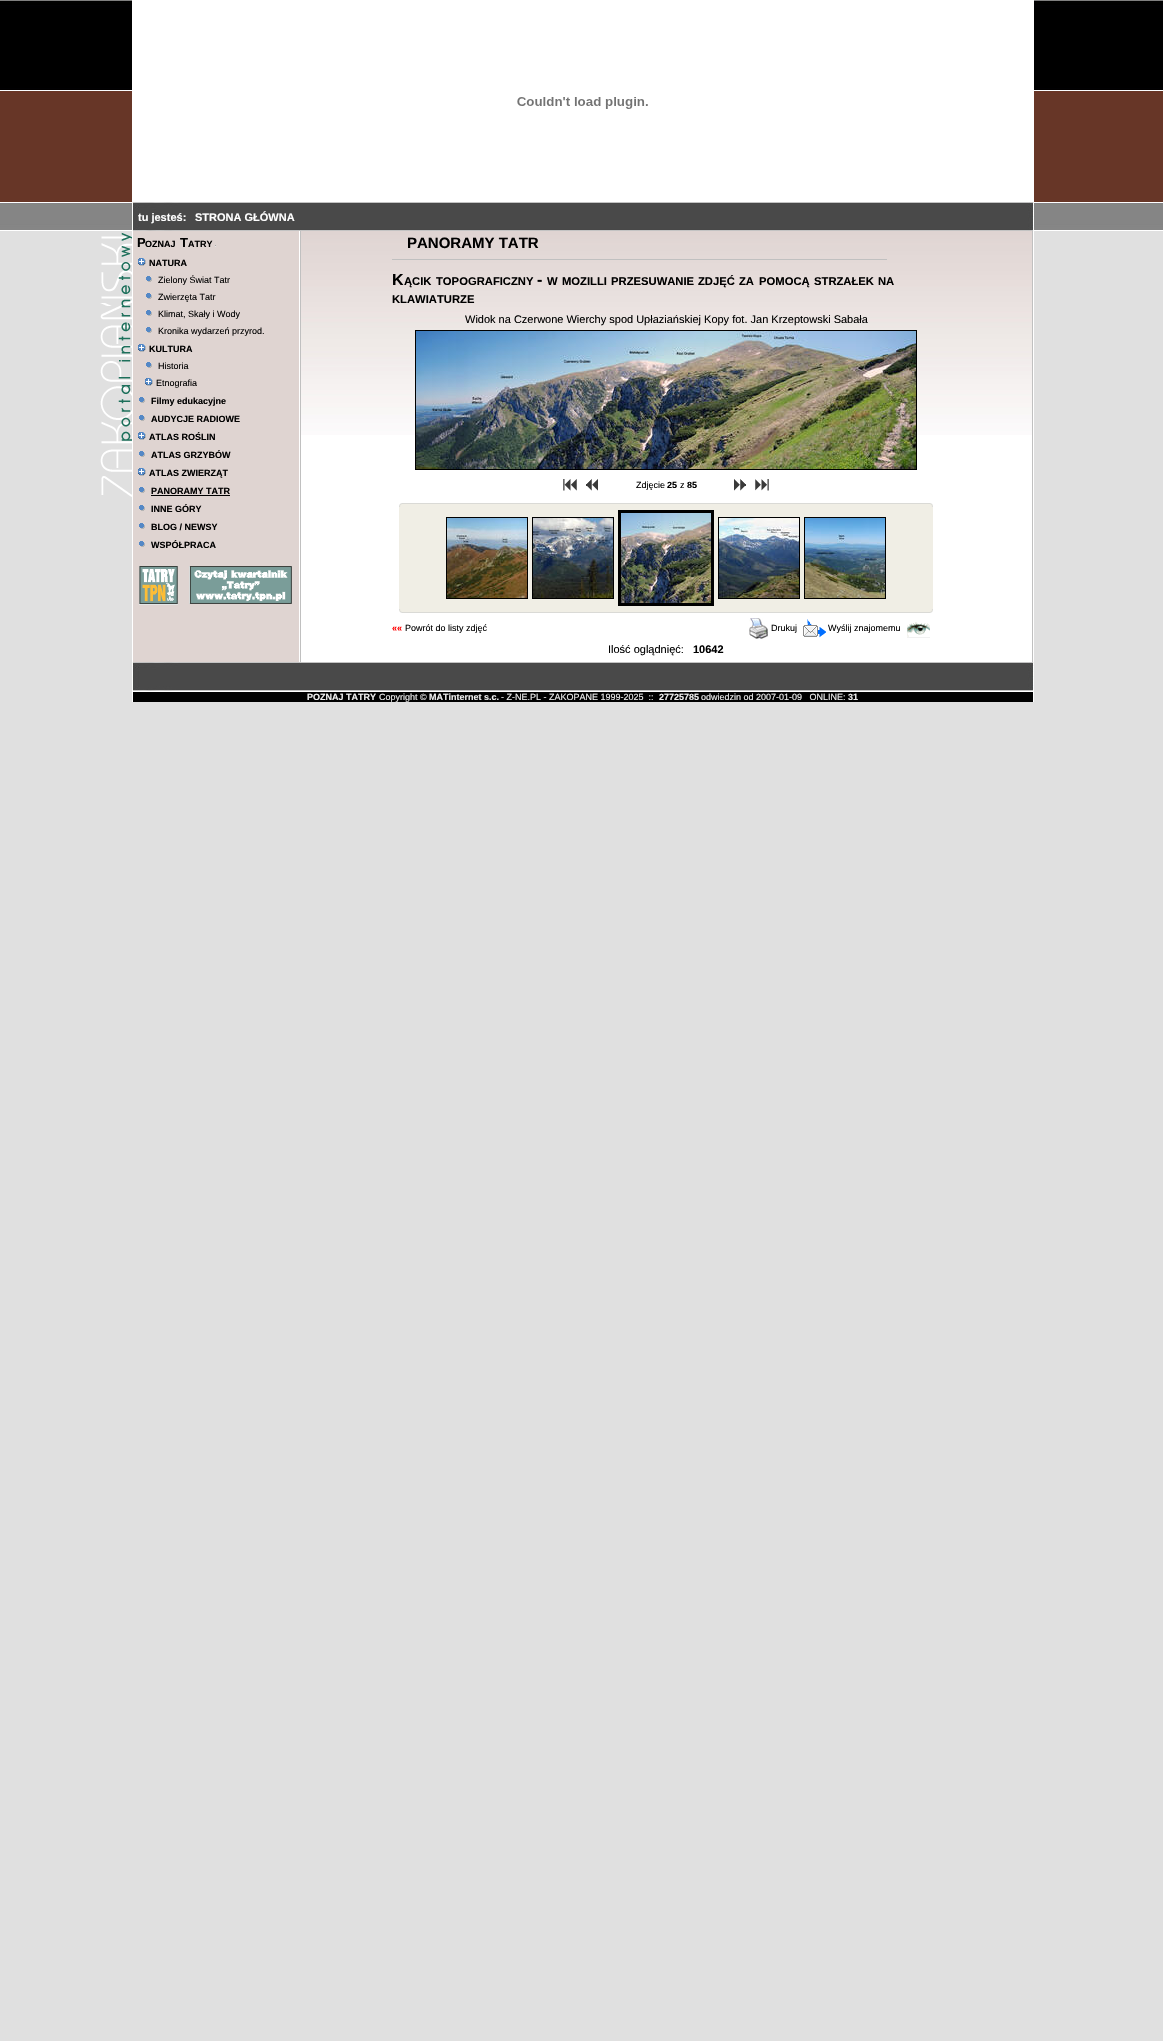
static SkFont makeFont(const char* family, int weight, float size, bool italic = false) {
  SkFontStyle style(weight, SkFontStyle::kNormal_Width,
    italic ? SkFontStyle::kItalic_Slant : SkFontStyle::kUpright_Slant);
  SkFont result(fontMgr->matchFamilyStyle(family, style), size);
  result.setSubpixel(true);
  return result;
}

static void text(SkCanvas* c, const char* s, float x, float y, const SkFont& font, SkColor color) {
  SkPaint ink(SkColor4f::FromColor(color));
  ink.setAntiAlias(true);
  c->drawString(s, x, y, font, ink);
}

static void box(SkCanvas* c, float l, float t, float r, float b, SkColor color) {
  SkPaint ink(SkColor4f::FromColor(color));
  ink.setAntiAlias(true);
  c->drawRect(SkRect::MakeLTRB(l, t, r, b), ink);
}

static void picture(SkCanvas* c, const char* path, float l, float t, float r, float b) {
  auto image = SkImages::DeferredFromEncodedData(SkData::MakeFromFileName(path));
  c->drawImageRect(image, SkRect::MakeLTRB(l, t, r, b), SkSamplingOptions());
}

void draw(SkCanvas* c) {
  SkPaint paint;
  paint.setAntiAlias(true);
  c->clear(0xffe0e0e0);
  picture(c, "img_01.png", 0, 0, 1163, 231);
  picture(c, "img_02.png", 100, 232, 132, 497);
  box(c, 132, 0, 1034, 662, 0xffffffff);
  picture(c, "img_03.png", 517, 97, 648, 109);
  picture(c, "img_04.png", 132, 202, 1034, 231);
  SkFont face1 = makeFont("Liberation Sans", 700, 11);
  text(c, "tu jesteś:", 138, 221, face1, 0xffffffff);
  text(c, "STRONA GŁÓWNA", 195, 221, face1, 0xffffffff);
  box(c, 133, 231, 299, 662, 0xffdfd4d1);
  SkFont face2 = makeFont("Liberation Sans", 700, 13);
  text(c, "P", 137, 247, face2, 0xff000000);
  SkFont face3 = makeFont("Liberation Sans", 700, 9);
  text(c, "OZNAJ", 145, 247, face3, 0xff000000);
  text(c, "T", 180, 247, face2, 0xff000000);
  text(c, "ATRY", 188, 247, face3, 0xff000000);
  picture(c, "img_05.png", 215, 245, 216, 247);
  picture(c, "img_06.png", 138, 258, 146, 266);
  text(c, "NATURA", 149, 266, face3, 0xff000000);
  picture(c, "img_07.png", 146, 276, 152, 282);
  SkFont face4 = makeFont("Liberation Sans", 400, 9);
  text(c, "Zielony Świat Tatr", 158, 283, face4, 0xff000000);
  picture(c, "img_07.png", 146, 293, 152, 299);
  text(c, "Zwierzęta Tatr", 158, 300, face4, 0xff000000);
  picture(c, "img_07.png", 146, 310, 152, 316);
  text(c, "Klimat, Skały i Wody", 158, 317, face4, 0xff000000);
  picture(c, "img_07.png", 146, 327, 152, 333);
  text(c, "Kronika wydarzeń przyrod.", 158, 334, face4, 0xff000000);
  picture(c, "img_06.png", 138, 344, 146, 352);
  text(c, "KULTURA", 149, 352, face3, 0xff000000);
  picture(c, "img_07.png", 146, 362, 152, 368);
  text(c, "Historia", 158, 369, face4, 0xff000000);
  picture(c, "img_06.png", 145, 378, 153, 386);
  text(c, "Etnografia", 156, 386, face4, 0xff000000);
  picture(c, "img_07.png", 139, 397, 145, 403);
  text(c, "Filmy edukacyjne", 151, 404, face3, 0xff000000);
  picture(c, "img_07.png", 139, 415, 145, 421);
  text(c, "AUDYCJE RADIOWE", 151, 422, face3, 0xff000000);
  picture(c, "img_06.png", 138, 432, 146, 440);
  text(c, "ATLAS ROŚLIN", 149, 440, face3, 0xff000000);
  picture(c, "img_07.png", 139, 451, 145, 457);
  text(c, "ATLAS GRZYBÓW", 151, 458, face3, 0xff000000);
  picture(c, "img_06.png", 138, 468, 146, 476);
  text(c, "ATLAS ZWIERZĄT", 149, 476, face3, 0xff000000);
  picture(c, "img_07.png", 139, 487, 145, 493);
  text(c, "PANORAMY TATR", 151, 494, face3, 0xff000000);
  box(c, 151, 495, 230, 496, 0xff000000);
  picture(c, "img_07.png", 139, 505, 145, 511);
  text(c, "INNE GÓRY", 151, 512, face3, 0xff000000);
  picture(c, "img_07.png", 139, 523, 145, 529);
  text(c, "BLOG / NEWSY", 151, 530, face3, 0xff000000);
  picture(c, "img_07.png", 139, 541, 145, 547);
  text(c, "WSPÓŁPRACA", 151, 548, face3, 0xff000000);
  picture(c, "img_08.png", 139, 566, 292, 605);
  box(c, 300, 231, 301, 662, 0xffc0c0c0);
  picture(c, "img_09.png", 301, 231, 1032, 435);
  SkFont face5 = makeFont("Liberation Sans", 700, 15);
  text(c, "PANORAMY TATR", 407, 248, face5, 0xff000000);
  box(c, 392, 259, 887, 260, 0xffc0c0c0);
  SkFont face6 = makeFont("Liberation Sans", 700, 16);
  text(c, "K", 392, 285, face6, 0xff000000);
  SkFont face7 = makeFont("Liberation Sans", 700, 11.25f);
  text(c, "ĄCIK", 404, 285, face7, 0xff000000);
  text(c, "TOPOGRAFICZNY", 436, 285, face7, 0xff000000);
  text(c, "-", 537, 285, face6, 0xff000000);
  text(c, "W", 547, 285, face7, 0xff000000);
  text(c, "MOZILLI", 562, 285, face7, 0xff000000);
  text(c, "PRZESUWANIE", 611, 285, face7, 0xff000000);
  text(c, "ZDJĘĆ", 698, 285, face7, 0xff000000);
  text(c, "ZA", 739, 285, face7, 0xff000000);
  text(c, "POMOCĄ", 759, 285, face7, 0xff000000);
  text(c, "STRZAŁEK", 814, 285, face7, 0xff000000);
  text(c, "NA", 878, 285, face7, 0xff000000);
  text(c, "KLAWIATURZE", 392, 303, face7, 0xff000000);
  SkFont face8 = makeFont("Liberation Sans", 400, 11);
  text(c, "Widok na Czerwone Wierchy spod Upłaziańskiej Kopy fot. Jan Krzeptowski Sabała", 465, 323, face8, 0xff000000);
  paint.setStyle(SkPaint::kStroke_Style);
  paint.setStrokeWidth(1);
  paint.setColor(0xff000000);
  c->drawRect(SkRect::MakeLTRB(415.5f, 330.5f, 916.5f, 469.5f), paint);
  picture(c, "img_10.png", 416, 331, 916, 469);
  picture(c, "img_11.png", 563, 479, 577, 491);
  picture(c, "img_12.png", 586, 479, 598, 491);
  text(c, "Zdjęcie", 636, 488, face4, 0xff000000);
  text(c, "25", 667, 488, face3, 0xff000000);
  text(c, "z", 680, 488, face4, 0xff000000);
  text(c, "85", 687, 488, face3, 0xff000000);
  picture(c, "img_13.png", 734, 479, 746, 491);
  picture(c, "img_14.png", 755, 479, 769, 491);
  picture(c, "img_15.png", 399, 503, 933, 507);
  box(c, 399, 507, 933, 609, 0xfff0eee5);
  c->drawRect(SkRect::MakeLTRB(446.5f, 517.5f, 527.5f, 598.5f), paint);
  picture(c, "img_16.png", 447, 518, 527, 598);
  c->drawRect(SkRect::MakeLTRB(532.5f, 517.5f, 613.5f, 598.5f), paint);
  picture(c, "img_17.png", 533, 518, 613, 598);
  paint.setStrokeWidth(3);
  c->drawRect(SkRect::MakeLTRB(619.5f, 511.5f, 712.5f, 604.5f), paint);
  picture(c, "img_18.png", 621, 513, 711, 603);
  paint.setStrokeWidth(1);
  c->drawRect(SkRect::MakeLTRB(718.5f, 517.5f, 799.5f, 598.5f), paint);
  picture(c, "img_19.png", 719, 518, 799, 598);
  c->drawRect(SkRect::MakeLTRB(804.5f, 517.5f, 885.5f, 598.5f), paint);
  picture(c, "img_20.png", 805, 518, 885, 598);
  picture(c, "img_21.png", 399, 609, 933, 613);
  text(c, "««", 392, 631, face3, 0xffff0000);
  text(c, "Powrót do listy zdjęć", 405, 631, face4, 0xff000000);
  picture(c, "img_22.png", 749, 618, 768, 639);
  text(c, "Drukuj", 771, 631, face4, 0xff000000);
  picture(c, "img_23.png", 803, 619, 826, 638);
  text(c, "Wyślij znajomemu", 828, 631, face4, 0xff000000);
  picture(c, "img_24.png", 907, 622, 930, 638);
  text(c, "Ilość oglądnięć:", 608, 653, face8, 0xff000000);
  text(c, "10642", 693, 653, face1, 0xff000000);
  box(c, 1032, 231, 1033, 662, 0xffc0c0c0);
  picture(c, "img_04.png", 132, 662, 1034, 691);
  box(c, 133, 692, 1033, 702, 0xff000000);
  box(c, 132, 691, 1034, 692, 0xffffffff);
  box(c, 1033, 691, 1034, 702, 0xffffffff);
  box(c, 132, 691, 133, 702, 0xffffffff);
  text(c, "POZNAJ TATRY", 307, 700, face3, 0xffefefef);
  text(c, "Copyright ©", 379, 700, face4, 0xffefefef);
  text(c, "MATinternet s.c.", 429, 700, face3, 0xffefefef);
  text(c, "- Z-NE.PL - ZAKOPANE 1999-2025  ::", 501, 700, face4, 0xffefefef);
  text(c, "27725785", 659, 700, face3, 0xffefefef);
  text(c, "odwiedzin od 2007-01-09   ONLINE:", 701, 700, face4, 0xffefefef);
  text(c, "31", 848, 700, face3, 0xffefefef);
}
